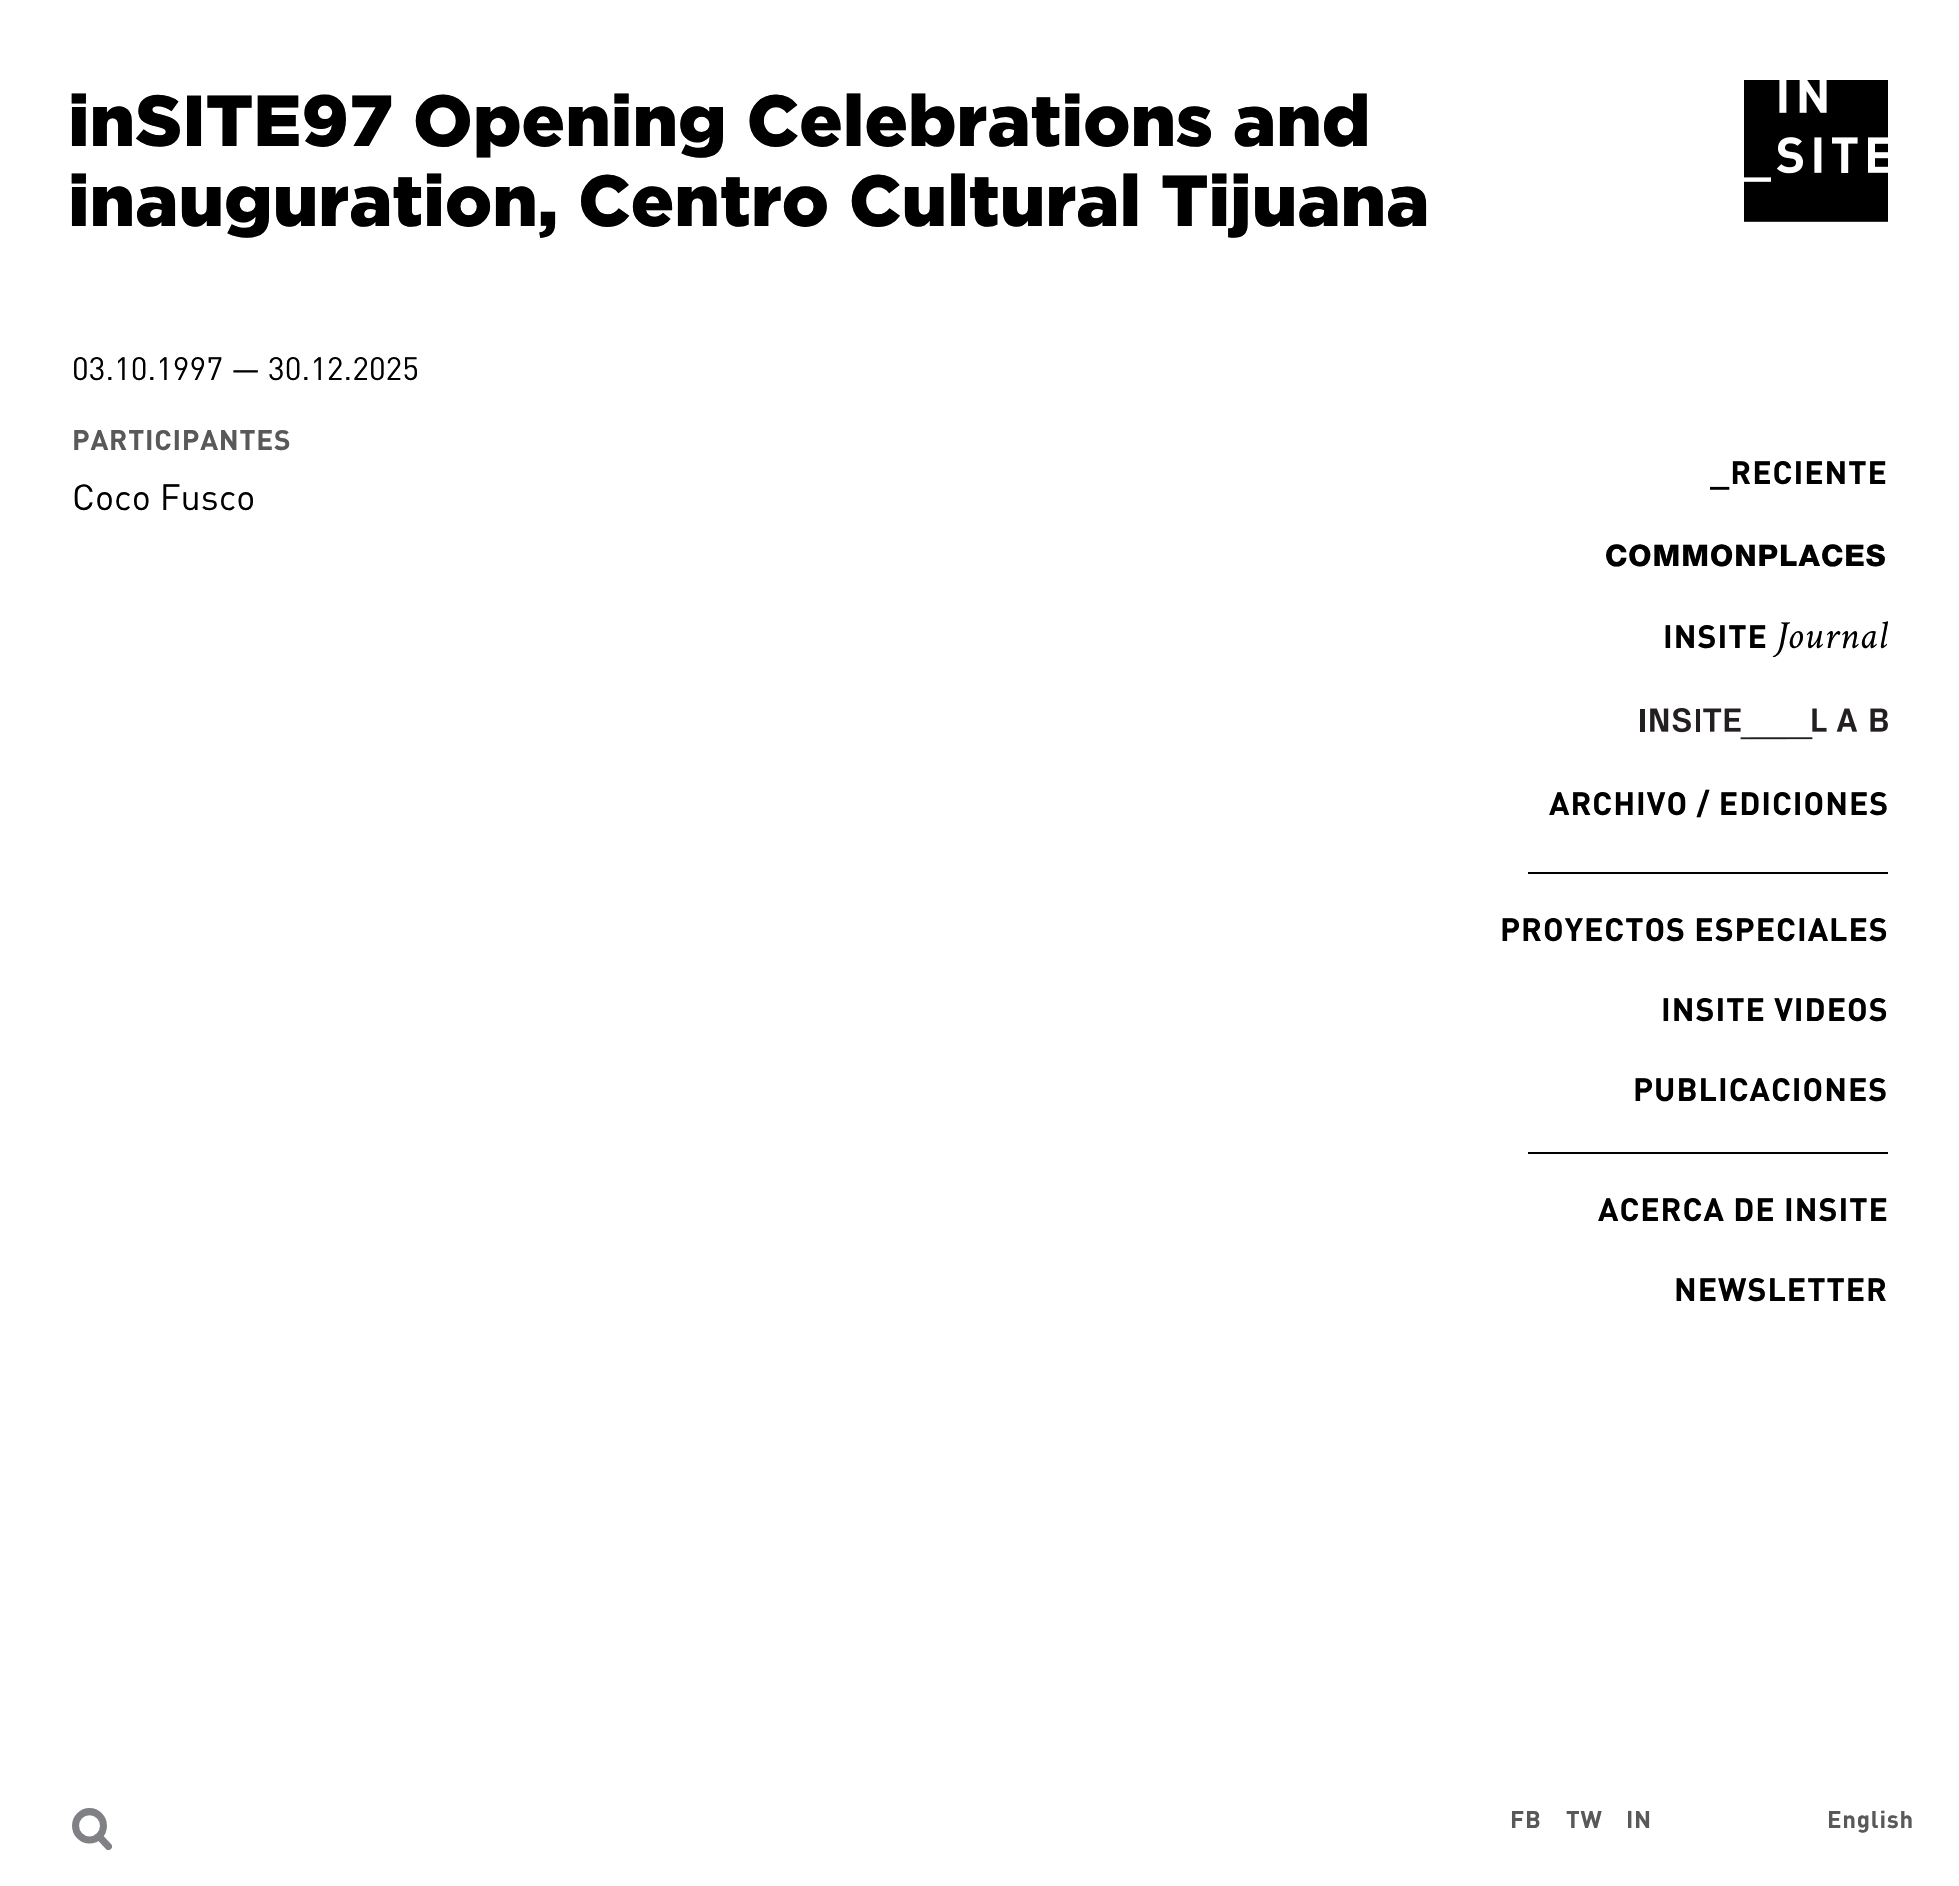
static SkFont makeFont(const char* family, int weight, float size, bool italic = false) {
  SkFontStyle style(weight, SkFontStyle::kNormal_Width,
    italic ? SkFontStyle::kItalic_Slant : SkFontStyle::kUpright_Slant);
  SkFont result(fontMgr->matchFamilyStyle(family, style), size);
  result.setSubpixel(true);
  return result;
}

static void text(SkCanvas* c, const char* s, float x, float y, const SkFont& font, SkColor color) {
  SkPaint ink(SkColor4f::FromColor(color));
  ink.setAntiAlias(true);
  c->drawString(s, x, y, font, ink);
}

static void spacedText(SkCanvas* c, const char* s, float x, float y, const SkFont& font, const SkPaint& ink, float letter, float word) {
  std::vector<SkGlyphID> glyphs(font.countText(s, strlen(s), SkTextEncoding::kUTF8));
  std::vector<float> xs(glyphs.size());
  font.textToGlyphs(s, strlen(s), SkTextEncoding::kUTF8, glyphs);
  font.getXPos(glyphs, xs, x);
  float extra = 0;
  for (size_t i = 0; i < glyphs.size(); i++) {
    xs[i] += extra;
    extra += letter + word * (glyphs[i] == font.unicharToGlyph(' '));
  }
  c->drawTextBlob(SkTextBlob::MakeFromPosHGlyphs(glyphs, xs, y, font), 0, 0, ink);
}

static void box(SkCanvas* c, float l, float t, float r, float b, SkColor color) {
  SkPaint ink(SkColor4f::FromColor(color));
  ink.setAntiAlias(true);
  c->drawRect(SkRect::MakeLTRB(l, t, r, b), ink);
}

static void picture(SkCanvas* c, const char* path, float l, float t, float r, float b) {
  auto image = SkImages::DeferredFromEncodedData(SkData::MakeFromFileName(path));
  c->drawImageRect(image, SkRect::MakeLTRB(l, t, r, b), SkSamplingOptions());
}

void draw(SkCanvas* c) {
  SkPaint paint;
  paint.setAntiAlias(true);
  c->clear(0xffffffff);
  SkFont face1 = makeFont("Gotham", 900, 72);
  text(c, "inSITE97 Opening Celebrations and", 68, 146, face1, 0xff000000);
  text(c, "inauguration, Centro Cultural Tijuana", 68, 226, face1, 0xff000000);
  SkFont face2 = makeFont("DIN", 400, 32);
  text(c, "03.10.1997 — 30.12.2025", 72, 380, face2, 0xff000000);
  SkFont face3 = makeFont("DIN", 700, 28);
  paint.setColor(0xff595959);
  spacedText(c, "PARTICIPANTES", 72, 450, face3, paint, 0.8f, 0);
  SkFont face4 = makeFont("DIN", 400, 36);
  text(c, "Coco Fusco", 72, 510, face4, 0xff000000);
  picture(c, "img_01.png", 1744, 80, 1888, 222);
  SkFont face5 = makeFont("DIN", 700, 32);
  paint.setColor(0xff000000);
  spacedText(c, "_RECIENTE", 1710, 484, face5, paint, 1, 0);
  SkFont face6 = makeFont("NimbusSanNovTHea", 400, 32);
  spacedText(c, "COMMONPLACES", 1605, 566, face6, paint, 1, 0);
  spacedText(c, "INSITE", 1663, 648, face5, paint, 1, 0);
  SkFont face7 = makeFont("Crimson Text", 400, 40, true);
  spacedText(c, "Journal", 1776, 648, face7, paint, 1, 0);
  picture(c, "img_02.png", 1640, 708, 1888, 740);
  spacedText(c, "ARCHIVO / EDICIONES", 1549, 815, face5, paint, 1, 0);
  box(c, 1528, 872, 1888, 874, 0xff000000);
  spacedText(c, "PROYECTOS ESPECIALES", 1500, 941, face5, paint, 1, 0);
  spacedText(c, "INSITE VIDEOS", 1661, 1021, face5, paint, 1, 0);
  spacedText(c, "PUBLICACIONES", 1633, 1101, face5, paint, 1, 0);
  box(c, 1528, 1152, 1888, 1154, 0xff000000);
  spacedText(c, "ACERCA DE INSITE", 1598, 1221, face5, paint, 1, 0);
  spacedText(c, "NEWSLETTER", 1674, 1301, face5, paint, 1, 0);
  picture(c, "img_03.png", 72, 1808, 112, 1850);
  SkFont face8 = makeFont("DIN", 700, 24);
  paint.setColor(0xff595959);
  spacedText(c, "FB", 1510, 1828, face8, paint, 0.75f, 0);
  spacedText(c, "TW", 1566, 1828, face8, paint, 0.75f, 0);
  spacedText(c, "IN", 1626, 1828, face8, paint, 0.75f, 0);
  spacedText(c, "English", 1827, 1828, face8, paint, 0.75f, 0);
}
